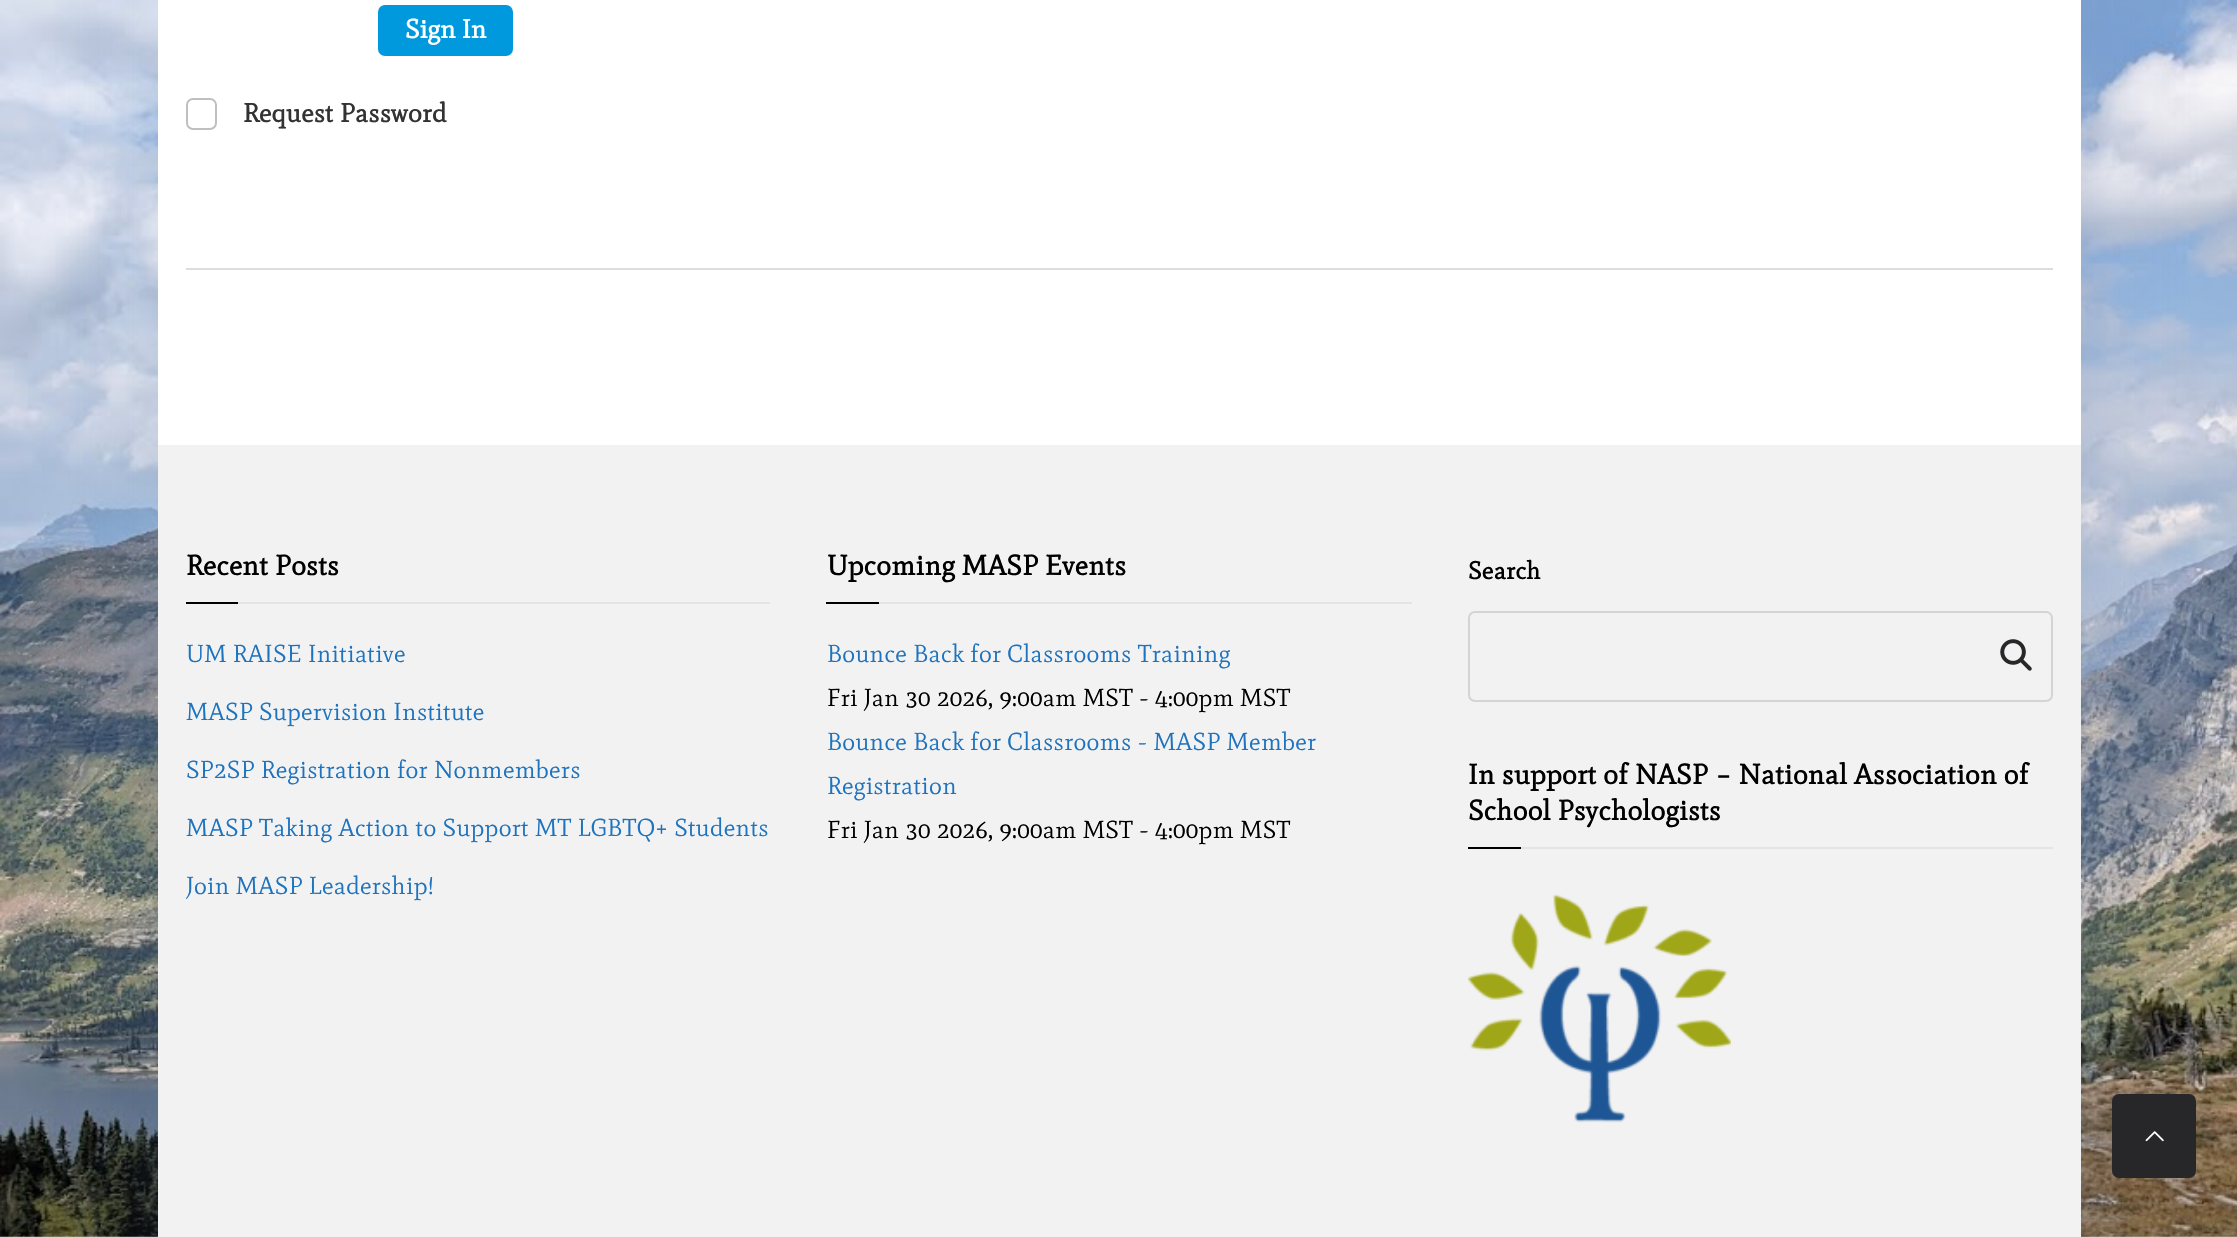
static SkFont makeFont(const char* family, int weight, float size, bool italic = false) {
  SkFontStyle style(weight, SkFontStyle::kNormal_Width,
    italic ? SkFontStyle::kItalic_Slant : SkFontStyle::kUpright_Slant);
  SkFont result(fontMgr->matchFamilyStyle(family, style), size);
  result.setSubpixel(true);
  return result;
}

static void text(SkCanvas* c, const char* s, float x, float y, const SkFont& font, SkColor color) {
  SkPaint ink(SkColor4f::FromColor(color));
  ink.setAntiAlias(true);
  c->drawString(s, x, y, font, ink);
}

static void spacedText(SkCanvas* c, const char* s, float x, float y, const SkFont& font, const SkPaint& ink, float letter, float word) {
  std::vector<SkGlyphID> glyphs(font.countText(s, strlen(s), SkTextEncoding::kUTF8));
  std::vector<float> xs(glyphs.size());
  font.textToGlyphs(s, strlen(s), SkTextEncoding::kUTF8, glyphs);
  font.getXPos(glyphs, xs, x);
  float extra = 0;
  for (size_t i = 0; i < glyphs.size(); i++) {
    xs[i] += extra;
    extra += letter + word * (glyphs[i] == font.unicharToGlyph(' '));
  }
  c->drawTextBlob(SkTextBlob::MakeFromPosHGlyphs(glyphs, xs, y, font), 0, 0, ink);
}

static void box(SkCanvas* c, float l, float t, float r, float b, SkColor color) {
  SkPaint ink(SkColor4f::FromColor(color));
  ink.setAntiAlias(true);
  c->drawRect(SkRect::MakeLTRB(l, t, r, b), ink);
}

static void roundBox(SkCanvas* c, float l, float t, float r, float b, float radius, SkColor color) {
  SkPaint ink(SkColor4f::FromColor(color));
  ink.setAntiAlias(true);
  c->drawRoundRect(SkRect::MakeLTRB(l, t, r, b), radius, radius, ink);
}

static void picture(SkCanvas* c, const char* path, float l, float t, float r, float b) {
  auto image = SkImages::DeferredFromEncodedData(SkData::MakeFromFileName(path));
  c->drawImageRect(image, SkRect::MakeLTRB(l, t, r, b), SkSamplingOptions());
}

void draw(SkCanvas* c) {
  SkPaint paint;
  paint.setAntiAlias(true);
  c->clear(0xffffffff);
  picture(c, "img_01.png", 0, 0, 2237, 1237);
  paint.setColor(0x406d8dad);
  paint.setMaskFilter(SkMaskFilter::MakeBlur(kNormal_SkBlurStyle, 52.5f));
  c->drawRect(SkRect::MakeLTRB(165, -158, 2088, 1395), paint);
  paint.setMaskFilter(nullptr);
  box(c, 158, 0, 2081, 445, 0xffffffff);
  box(c, 186, 268, 2053, 270, 0xffdddddd);
  roundBox(c, 378, 5, 513, 56, 7, 0xff0099dd);
  SkFont face1 = makeFont("Mate", 700, 26.25f);
  text(c, "Sign In", 405, 38, face1, 0xffffffff);
  paint.setStyle(SkPaint::kStroke_Style);
  paint.setStrokeWidth(2);
  paint.setColor(0xffbfbfbf);
  c->drawRoundRect(SkRect::MakeLTRB(187, 99, 216, 129), 6, 6, paint);
  paint.setStyle(SkPaint::kFill_Style);
  paint.setColor(0xff333333);
  spacedText(c, "Request Password", 243, 122, face1, paint, 0.3f, 0);
  box(c, 158, 445, 2081, 1237, 0xfff2f2f2);
  box(c, 238, 602, 770, 604, 0xffe4e4e7);
  SkFont face2 = makeFont("Mate", 700, 28);
  paint.setColor(0xff000000);
  spacedText(c, "Recent Posts", 186, 575, face2, paint, 0.3f, 0);
  box(c, 186, 602, 238, 604, 0xff000000);
  SkFont face3 = makeFont("Mate", 400, 24.5f);
  paint.setColor(0xff1e73be);
  spacedText(c, "UM RAISE Initiative", 186, 662, face3, paint, 0.3f, 0);
  spacedText(c, "MASP Supervision Institute", 186, 720, face3, paint, 0.3f, 0);
  spacedText(c, "SP2SP Registration for Nonmembers", 186, 778, face3, paint, 0.3f, 0);
  spacedText(c, "MASP Taking Action to Support MT LGBTQ+ Students", 186, 836, face3, paint, 0.3f, 0);
  spacedText(c, "Join MASP Leadership!", 186, 894, face3, paint, 0.3f, 0);
  box(c, 879, 602, 1412, 604, 0xffe4e4e7);
  paint.setColor(0xff000000);
  spacedText(c, "Upcoming MASP Events", 827, 575, face2, paint, 0.3f, 0);
  box(c, 826, 602, 879, 604, 0xff000000);
  paint.setColor(0xff1e73be);
  spacedText(c, "Bounce Back for Classrooms Training", 827, 662, face3, paint, 0.3f, 0);
  paint.setColor(0xff000000);
  spacedText(c, "Fri Jan 30 2026, 9:00am MST - 4:00pm MST", 827, 706, face3, paint, 0.3f, 0);
  paint.setColor(0xff1e73be);
  spacedText(c, "Bounce Back for Classrooms - MASP Member", 827, 750, face3, paint, 0.3f, 0);
  spacedText(c, "Registration", 827, 794, face3, paint, 0.3f, 0);
  paint.setColor(0xff000000);
  spacedText(c, "Fri Jan 30 2026, 9:00am MST - 4:00pm MST", 827, 838, face3, paint, 0.3f, 0);
  SkFont face4 = makeFont("Mate", 700, 24.5f);
  spacedText(c, "Search", 1468, 579, face4, paint, 0.3f, 0);
  paint.setStyle(SkPaint::kStroke_Style);
  paint.setColor(0xffd4d4d8);
  c->drawRoundRect(SkRect::MakeLTRB(1469, 612, 2052, 701), 6, 6, paint);
  picture(c, "img_02.png", 2000, 639, 2032, 671);
  box(c, 1521, 847, 2053, 849, 0xffe4e4e7);
  paint.setStyle(SkPaint::kFill_Style);
  paint.setColor(0xff000000);
  spacedText(c, "In support of NASP – National Association of", 1468, 784, face2, paint, 0.3f, 0);
  spacedText(c, "School Psychologists", 1468, 820, face2, paint, 0.3f, 0);
  box(c, 1468, 847, 1521, 849, 0xff000000);
  picture(c, "img_03.png", 1468, 894, 1731, 1123);
  roundBox(c, 2112, 1094, 2196, 1178, 7, 0xff27272a);
  picture(c, "img_04.png", 2145, 1131, 2164, 1142);
}
